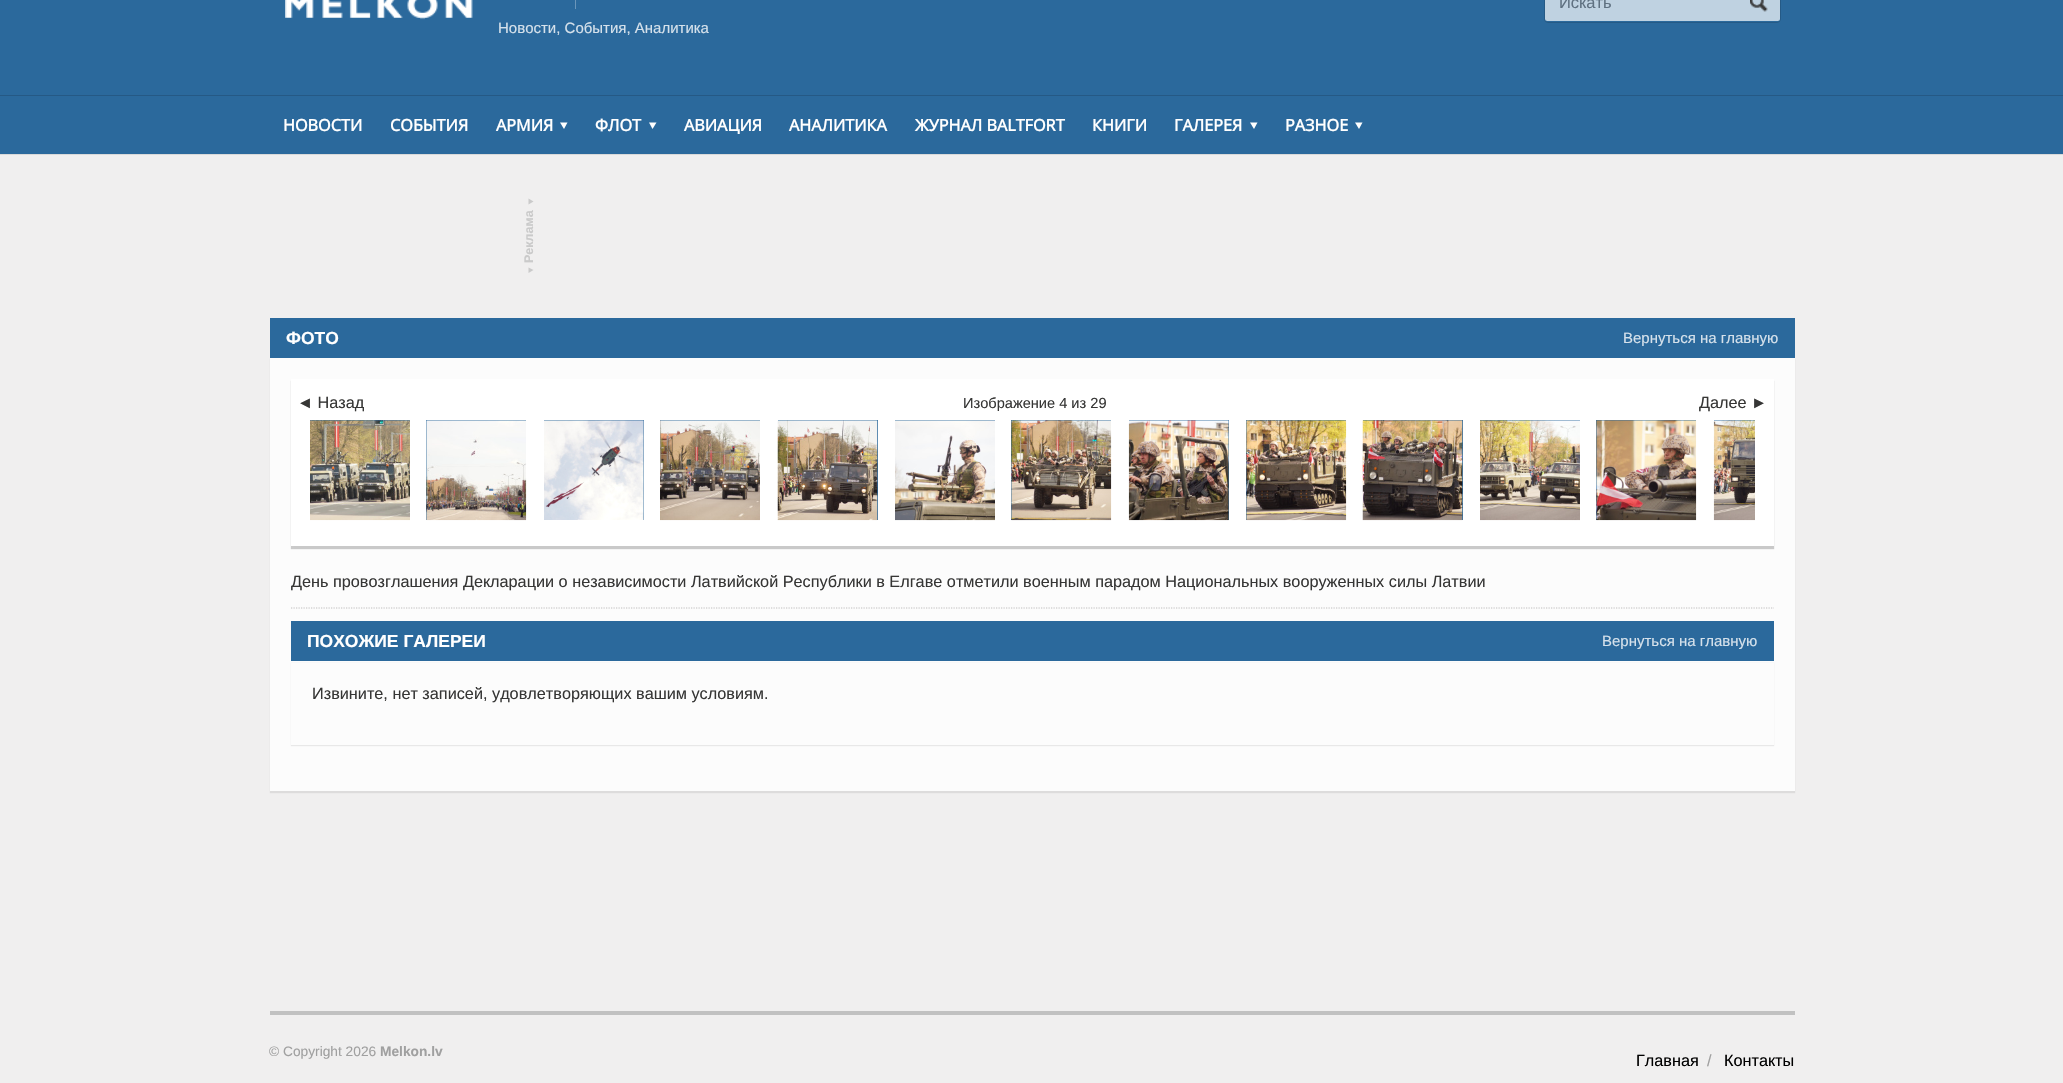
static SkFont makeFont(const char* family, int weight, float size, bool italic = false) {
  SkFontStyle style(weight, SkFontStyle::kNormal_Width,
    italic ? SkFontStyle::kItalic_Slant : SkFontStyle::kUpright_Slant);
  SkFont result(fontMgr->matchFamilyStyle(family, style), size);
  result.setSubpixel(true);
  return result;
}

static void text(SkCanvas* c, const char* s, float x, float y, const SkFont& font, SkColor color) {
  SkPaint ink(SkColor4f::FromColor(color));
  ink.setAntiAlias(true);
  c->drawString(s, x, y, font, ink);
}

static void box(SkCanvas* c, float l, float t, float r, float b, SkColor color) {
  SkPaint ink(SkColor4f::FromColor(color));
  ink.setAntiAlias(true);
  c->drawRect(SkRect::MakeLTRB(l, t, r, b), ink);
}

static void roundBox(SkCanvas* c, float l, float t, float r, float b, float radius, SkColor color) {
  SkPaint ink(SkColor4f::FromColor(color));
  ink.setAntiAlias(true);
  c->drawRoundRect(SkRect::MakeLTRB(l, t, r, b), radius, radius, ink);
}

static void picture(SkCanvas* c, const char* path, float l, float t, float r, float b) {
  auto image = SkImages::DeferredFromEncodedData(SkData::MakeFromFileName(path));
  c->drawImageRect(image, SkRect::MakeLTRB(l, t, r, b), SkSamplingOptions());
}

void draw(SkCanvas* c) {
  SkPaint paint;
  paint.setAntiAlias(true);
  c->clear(0xfff0efef);
  box(c, 0, 0, 2063, 154, 0xff2b699c);
  picture(c, "img_01.png", 285, 0, 473, 20);
  paint.setStyle(SkPaint::kStroke_Style);
  paint.setStrokeWidth(1);
  paint.setColor(0xff255a86);
  c->drawRoundRect(SkRect::MakeLTRB(1544.5f, -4.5f, 1780.5f, 22.5f), 3.5f, 3.5f, paint);
  roundBox(c, 1545, -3, 1780, 21, 2.5f, 0xffbfd2e1);
  SkFont face1 = makeFont("Liberation Sans", 400, 16.5f);
  text(c, "Искать", 1559, 8, face1, 0xff5f7181);
  picture(c, "img_02.png", 1750, 0, 1768, 12);
  box(c, 575, 0, 576, 9, 0xff6b96ba);
  SkFont face2 = makeFont("Liberation Sans", 400, 15);
  text(c, "Новости, События, Аналитика", 498, 33, face2, 0xffd5e1eb);
  box(c, 0, 95, 2063, 96, 0xff255985);
  SkFont face3 = makeFont("Open Sans", 700, 16.25f);
  text(c, "НОВОСТИ", 283, 131, face3, 0xffffffff);
  text(c, "СОБЫТИЯ", 390, 131, face3, 0xffffffff);
  text(c, "АРМИЯ", 496, 131, face3, 0xffffffff);
  paint.setStyle(SkPaint::kFill_Style);
  paint.setColor(0xffffffff);
  c->drawPath(SkPathBuilder().moveTo(567.5f, 122.5f).lineTo(564, 129).lineTo(560, 122.5f).close().detach(), paint);
  text(c, "ФЛОТ", 595, 131, face3, 0xffffffff);
  c->drawPath(SkPathBuilder().moveTo(656.5f, 122.5f).lineTo(652.5f, 129).lineTo(649, 122.5f).close().detach(), paint);
  text(c, "АВИАЦИЯ", 684, 131, face3, 0xffffffff);
  text(c, "АНАЛИТИКА", 789, 131, face3, 0xffffffff);
  text(c, "ЖУРНАЛ BALTFORT", 915, 131, face3, 0xffffffff);
  text(c, "КНИГИ", 1092, 131, face3, 0xffffffff);
  text(c, "ГАЛЕРЕЯ", 1174, 131, face3, 0xffffffff);
  c->drawPath(SkPathBuilder().moveTo(1257.5f, 122.5f).lineTo(1254, 129).lineTo(1250, 122.5f).close().detach(), paint);
  text(c, "РАЗНОЕ", 1285, 131, face3, 0xffffffff);
  c->drawPath(SkPathBuilder().moveTo(1362.5f, 122.5f).lineTo(1359, 129).lineTo(1355, 122.5f).close().detach(), paint);
  box(c, 0, 154, 2063, 155, 0xffd9d9d9);
  paint.setColor(0xffcacaca);
  c->drawPath(SkPathBuilder().moveTo(528.5f, 198.5f).lineTo(533.5f, 201.5f).lineTo(528.5f, 204.5f).close().detach(), paint);
  SkFont face4 = makeFont("Liberation Sans", 700, 12.5f);
  c->save();
  c->rotate(-90, 533, 263);
  text(c, "Реклама", 533, 263, face4, 0xffcacaca);
  c->restore();
  c->drawPath(SkPathBuilder().moveTo(528.5f, 267.5f).lineTo(533.5f, 270).lineTo(528.5f, 273).close().detach(), paint);
  box(c, 270, 318, 1795, 358, 0xff2b699c);
  SkFont face5 = makeFont("Liberation Sans", 700, 17.5f);
  text(c, "ФОТО", 286, 344, face5, 0xffffffff);
  text(c, "Вернуться на главную", 1623, 343, face2, 0xffd5e1eb);
  paint.setColor(0x14000000);
  paint.setMaskFilter(SkMaskFilter::MakeBlur(kNormal_SkBlurStyle, 0.5f));
  c->drawRect(SkRect::MakeLTRB(270, 359, 1795, 793), paint);
  paint.setMaskFilter(nullptr);
  box(c, 270, 358, 1795, 791, 0xfffcfcfc);
  paint.setColor(0x33000000);
  paint.setMaskFilter(SkMaskFilter::MakeBlur(kNormal_SkBlurStyle, 0.5f));
  c->drawRect(SkRect::MakeLTRB(291, 381, 1774, 549), paint);
  paint.setMaskFilter(nullptr);
  box(c, 291, 379, 1774, 546, 0xffffffff);
  SkFont face6 = makeFont("Liberation Sans", 400, 16.25f);
  text(c, "◄ Назад", 297, 408, face6, 0xff363635);
  SkFont face7 = makeFont("Liberation Sans", 400, 14.6f);
  text(c, "Изображение 4 из 29", 963, 408, face7, 0xff363635);
  text(c, "Далее ►", 1699, 408, face6, 0xff363635);
  box(c, 310, 420, 410, 421, 0xff2b699c);
  picture(c, "img_03.png", 310, 420, 410, 521);
  box(c, 426, 420, 526, 520, 0xff2b699c);
  picture(c, "img_04.png", 426, 420, 527, 521);
  box(c, 544, 420, 644, 520, 0xff2b699c);
  picture(c, "img_05.png", 544, 420, 644, 520);
  box(c, 660, 420, 760, 421, 0xff2b699c);
  picture(c, "img_06.png", 660, 420, 760, 521);
  box(c, 778, 420, 878, 520, 0xff2b699c);
  picture(c, "img_07.png", 777, 420, 878, 521);
  box(c, 895, 420, 995, 421, 0xff2b699c);
  picture(c, "img_08.png", 895, 420, 995, 521);
  box(c, 1011, 420, 1111, 520, 0xff2b699c);
  picture(c, "img_09.png", 1011, 420, 1112, 521);
  box(c, 1129, 420, 1229, 520, 0xff2b699c);
  picture(c, "img_10.png", 1128, 420, 1229, 521);
  box(c, 1246, 420, 1346, 520, 0xff2b699c);
  picture(c, "img_11.png", 1246, 420, 1347, 521);
  box(c, 1363, 420, 1463, 520, 0xff2b699c);
  picture(c, "img_12.png", 1362, 420, 1463, 521);
  box(c, 1480, 420, 1580, 421, 0xff2b699c);
  picture(c, "img_13.png", 1480, 420, 1580, 521);
  box(c, 1596, 420, 1696, 520, 0xff2b699c);
  picture(c, "img_14.png", 1596, 420, 1697, 521);
  box(c, 1714, 420, 1755, 421, 0xff2b699c);
  picture(c, "img_15.png", 1713, 420, 1755, 521);
  text(c, "День провозглашения Декларации о независимости Латвийской Республики в Елгаве отметили военным парадом Национальных вооруженных силы Латвии", 291, 587, face6, 0xff363635);
  paint.setStyle(SkPaint::kStroke_Style);
  paint.setStrokeWidth(1.2f);
  paint.setColor(0xffc0bfbf);
  paint.setPathEffect(SkDashPathEffect::Make({{1.25f, 1.25f}}, 0));
  c->drawPath(SkPathBuilder().moveTo(291, 608).lineTo(1774, 608).detach(), paint);
  paint.setPathEffect(nullptr);
  box(c, 291, 621, 1774, 661, 0xff2b699c);
  text(c, "ПОХОЖИЕ ГАЛЕРЕИ", 307, 647, face5, 0xffffffff);
  text(c, "Вернуться на главную", 1602, 646, face2, 0xffd5e1eb);
  paint.setStyle(SkPaint::kFill_Style);
  paint.setColor(0x14000000);
  paint.setMaskFilter(SkMaskFilter::MakeBlur(kNormal_SkBlurStyle, 0.5f));
  c->drawRect(SkRect::MakeLTRB(291, 663, 1774, 746), paint);
  paint.setMaskFilter(nullptr);
  box(c, 291, 663, 1774, 745, 0xfffcfcfc);
  text(c, "Извините, нет записей, удовлетворяющих вашим условиям.", 312, 699, face6, 0xff363635);
  box(c, 270, 1011, 1795, 1015, 0xffc1c1c1);
  SkFont face8 = makeFont("Liberation Sans", 400, 13.75f);
  text(c, "© Copyright 2026", 269, 1056, face8, 0xffa0a0a0);
  SkFont face9 = makeFont("Liberation Sans", 700, 13.75f);
  text(c, "Melkon.lv", 380, 1056, face9, 0xffa0a0a0);
  text(c, "Главная", 1636, 1066, face6, 0xff000000);
  text(c, "/", 1707, 1066, face6, 0xffa0a0a0);
  text(c, "Контакты", 1724, 1066, face6, 0xff000000);
}
